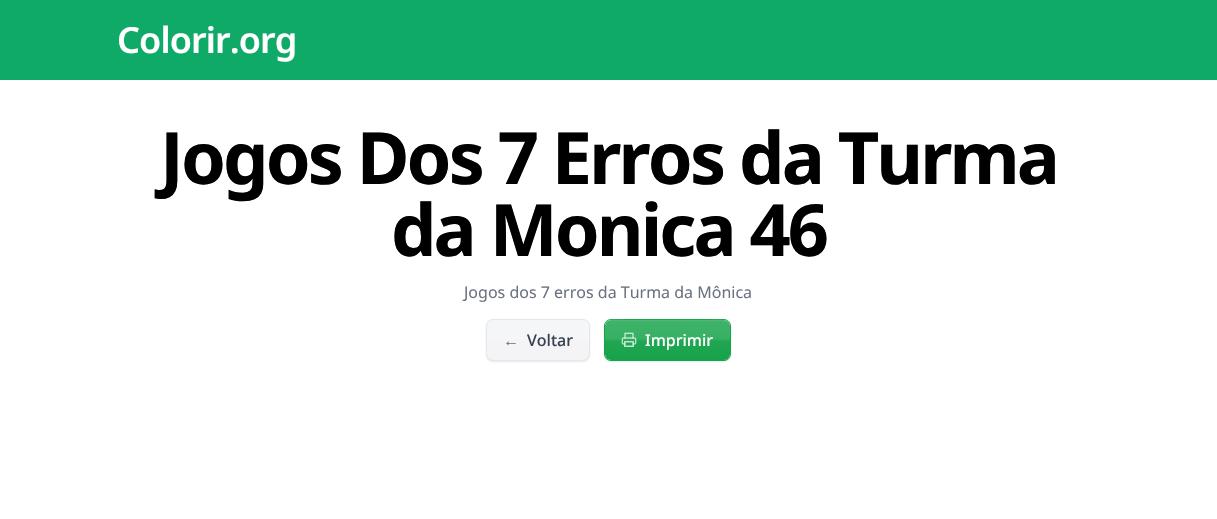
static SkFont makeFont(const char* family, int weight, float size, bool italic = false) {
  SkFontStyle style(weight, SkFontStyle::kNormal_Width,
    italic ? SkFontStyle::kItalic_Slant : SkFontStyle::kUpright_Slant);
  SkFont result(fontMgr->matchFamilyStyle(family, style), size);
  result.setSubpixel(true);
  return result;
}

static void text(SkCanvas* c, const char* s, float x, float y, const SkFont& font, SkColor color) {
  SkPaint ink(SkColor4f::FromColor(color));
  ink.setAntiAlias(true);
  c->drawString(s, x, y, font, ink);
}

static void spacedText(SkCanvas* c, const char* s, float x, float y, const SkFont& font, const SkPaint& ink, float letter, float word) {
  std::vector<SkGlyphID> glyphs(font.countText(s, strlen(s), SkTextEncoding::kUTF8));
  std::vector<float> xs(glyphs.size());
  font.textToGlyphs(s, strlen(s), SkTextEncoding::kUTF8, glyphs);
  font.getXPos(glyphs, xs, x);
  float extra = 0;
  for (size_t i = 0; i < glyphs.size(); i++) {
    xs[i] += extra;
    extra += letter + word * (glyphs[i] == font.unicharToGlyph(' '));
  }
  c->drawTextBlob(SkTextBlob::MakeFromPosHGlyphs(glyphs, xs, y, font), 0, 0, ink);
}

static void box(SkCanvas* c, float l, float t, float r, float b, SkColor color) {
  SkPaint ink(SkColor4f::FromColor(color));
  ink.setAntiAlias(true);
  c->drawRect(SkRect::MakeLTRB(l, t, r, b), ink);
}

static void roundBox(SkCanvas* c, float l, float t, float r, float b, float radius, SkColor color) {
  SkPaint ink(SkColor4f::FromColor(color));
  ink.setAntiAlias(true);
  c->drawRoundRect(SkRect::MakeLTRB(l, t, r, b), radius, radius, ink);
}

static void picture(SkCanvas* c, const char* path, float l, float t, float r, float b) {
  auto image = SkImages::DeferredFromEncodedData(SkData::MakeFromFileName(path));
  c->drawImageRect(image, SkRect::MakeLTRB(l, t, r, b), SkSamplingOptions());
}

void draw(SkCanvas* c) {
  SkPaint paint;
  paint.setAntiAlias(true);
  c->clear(0xffffffff);
  box(c, 0, 0, 1217, 80, 0xff0fa968);
  SkFont face1 = makeFont("Noto Sans", 600, 36);
  paint.setColor(0xffffffff);
  spacedText(c, "Colorir.org", 117, 53, face1, paint, -0.9f, 0);
  SkFont face2 = makeFont("Noto Sans", 700, 72);
  paint.setColor(0xff000000);
  spacedText(c, "Jogos Dos 7 Erros da Turma", 160, 184, face2, paint, -2.9f, 0);
  spacedText(c, "da Monica 46", 391, 256, face2, paint, -2.9f, 0);
  SkFont face3 = makeFont("Noto Sans", 400, 16);
  text(c, "Jogos dos 7 erros da Turma da Mônica", 464, 298, face3, 0xff6b7280);
  paint.setColor(0x33111827);
  paint.setMaskFilter(SkMaskFilter::MakeBlur(kNormal_SkBlurStyle, 1.5f));
  c->drawRoundRect(SkRect::MakeLTRB(487, 321, 589, 361), 6, 6, paint);
  paint.setMaskFilter(nullptr);
  paint.setStyle(SkPaint::kStroke_Style);
  paint.setStrokeWidth(1);
  paint.setColor(0xffe5e7eb);
  c->drawRoundRect(SkRect::MakeLTRB(486.5f, 319.5f, 589.5f, 360.5f), 6.5f, 6.5f, paint);
  paint.setStyle(SkPaint::kFill_Style);
  {
    const SkColor colors[] = {0xfff5f6f7, 0xfff4f4f6};
    const float stops[] = {0.46f, 0.54f};
    const SkPoint ends[] = {{538, 320}, {538, 360}};
    paint.setShader(SkGradientShader::MakeLinear(ends, colors, stops, 2, SkTileMode::kClamp));
    paint.setAlpha(255);
  }
  c->drawRoundRect(SkRect::MakeLTRB(487, 320, 589, 360), 6, 6, paint);
  SkFont face4 = makeFont("Liberation Sans", 400, 16);
  text(c, "←", 503, 346, face4, 0xff6b7280);
  SkFont face5 = makeFont("Noto Sans", 500, 16);
  text(c, "Voltar", 527, 346, face5, 0xff374151);
  paint.setShader(nullptr);
  paint.setColor(0x33111827);
  paint.setMaskFilter(SkMaskFilter::MakeBlur(kNormal_SkBlurStyle, 1.5f));
  c->drawRoundRect(SkRect::MakeLTRB(605, 321, 730, 361), 6, 6, paint);
  paint.setMaskFilter(nullptr);
  paint.setStyle(SkPaint::kStroke_Style);
  paint.setColor(0xff16a34a);
  c->drawRoundRect(SkRect::MakeLTRB(604.5f, 319.5f, 730.5f, 360.5f), 6.5f, 6.5f, paint);
  roundBox(c, 605, 320, 730, 360, 6, 0xff16a34a);
  paint.setStyle(SkPaint::kFill_Style);
  paint.setColor(0x12ffffff);
  c->drawPath(SkPathBuilder().moveTo(611, 321).lineTo(724, 321).cubicTo(727, 321, 730, 324, 730, 327).cubicTo(730, 315, 711, 320, 705, 320).lineTo(630, 320).cubicTo(624, 320, 605, 315, 605, 327).cubicTo(605, 324, 608, 321, 611, 321).close().detach(), paint);
  {
    const SkColor colors[] = {0x14ffffff, 0x00ffffff};
    const float stops[] = {0, 1};
    const SkPoint ends[] = {{668, 320}, {668, 360}};
    paint.setShader(SkGradientShader::MakeLinear(ends, colors, stops, 2, SkTileMode::kClamp));
    paint.setAlpha(255);
  }
  c->drawRoundRect(SkRect::MakeLTRB(605, 320, 730, 360), 6, 6, paint);
  {
    const SkColor colors[] = {0x1affffff, 0x00ffffff};
    const float stops[] = {0.46f, 0.54f};
    const SkPoint ends[] = {{668, 320}, {668, 360}};
    paint.setShader(SkGradientShader::MakeLinear(ends, colors, stops, 2, SkTileMode::kClamp));
    paint.setAlpha(255);
  }
  c->drawRoundRect(SkRect::MakeLTRB(605, 320, 730, 360), 6, 6, paint);
  picture(c, "img_01.png", 621, 332, 637, 347);
  text(c, "Imprimir", 645, 346, face5, 0xffffffff);
}
